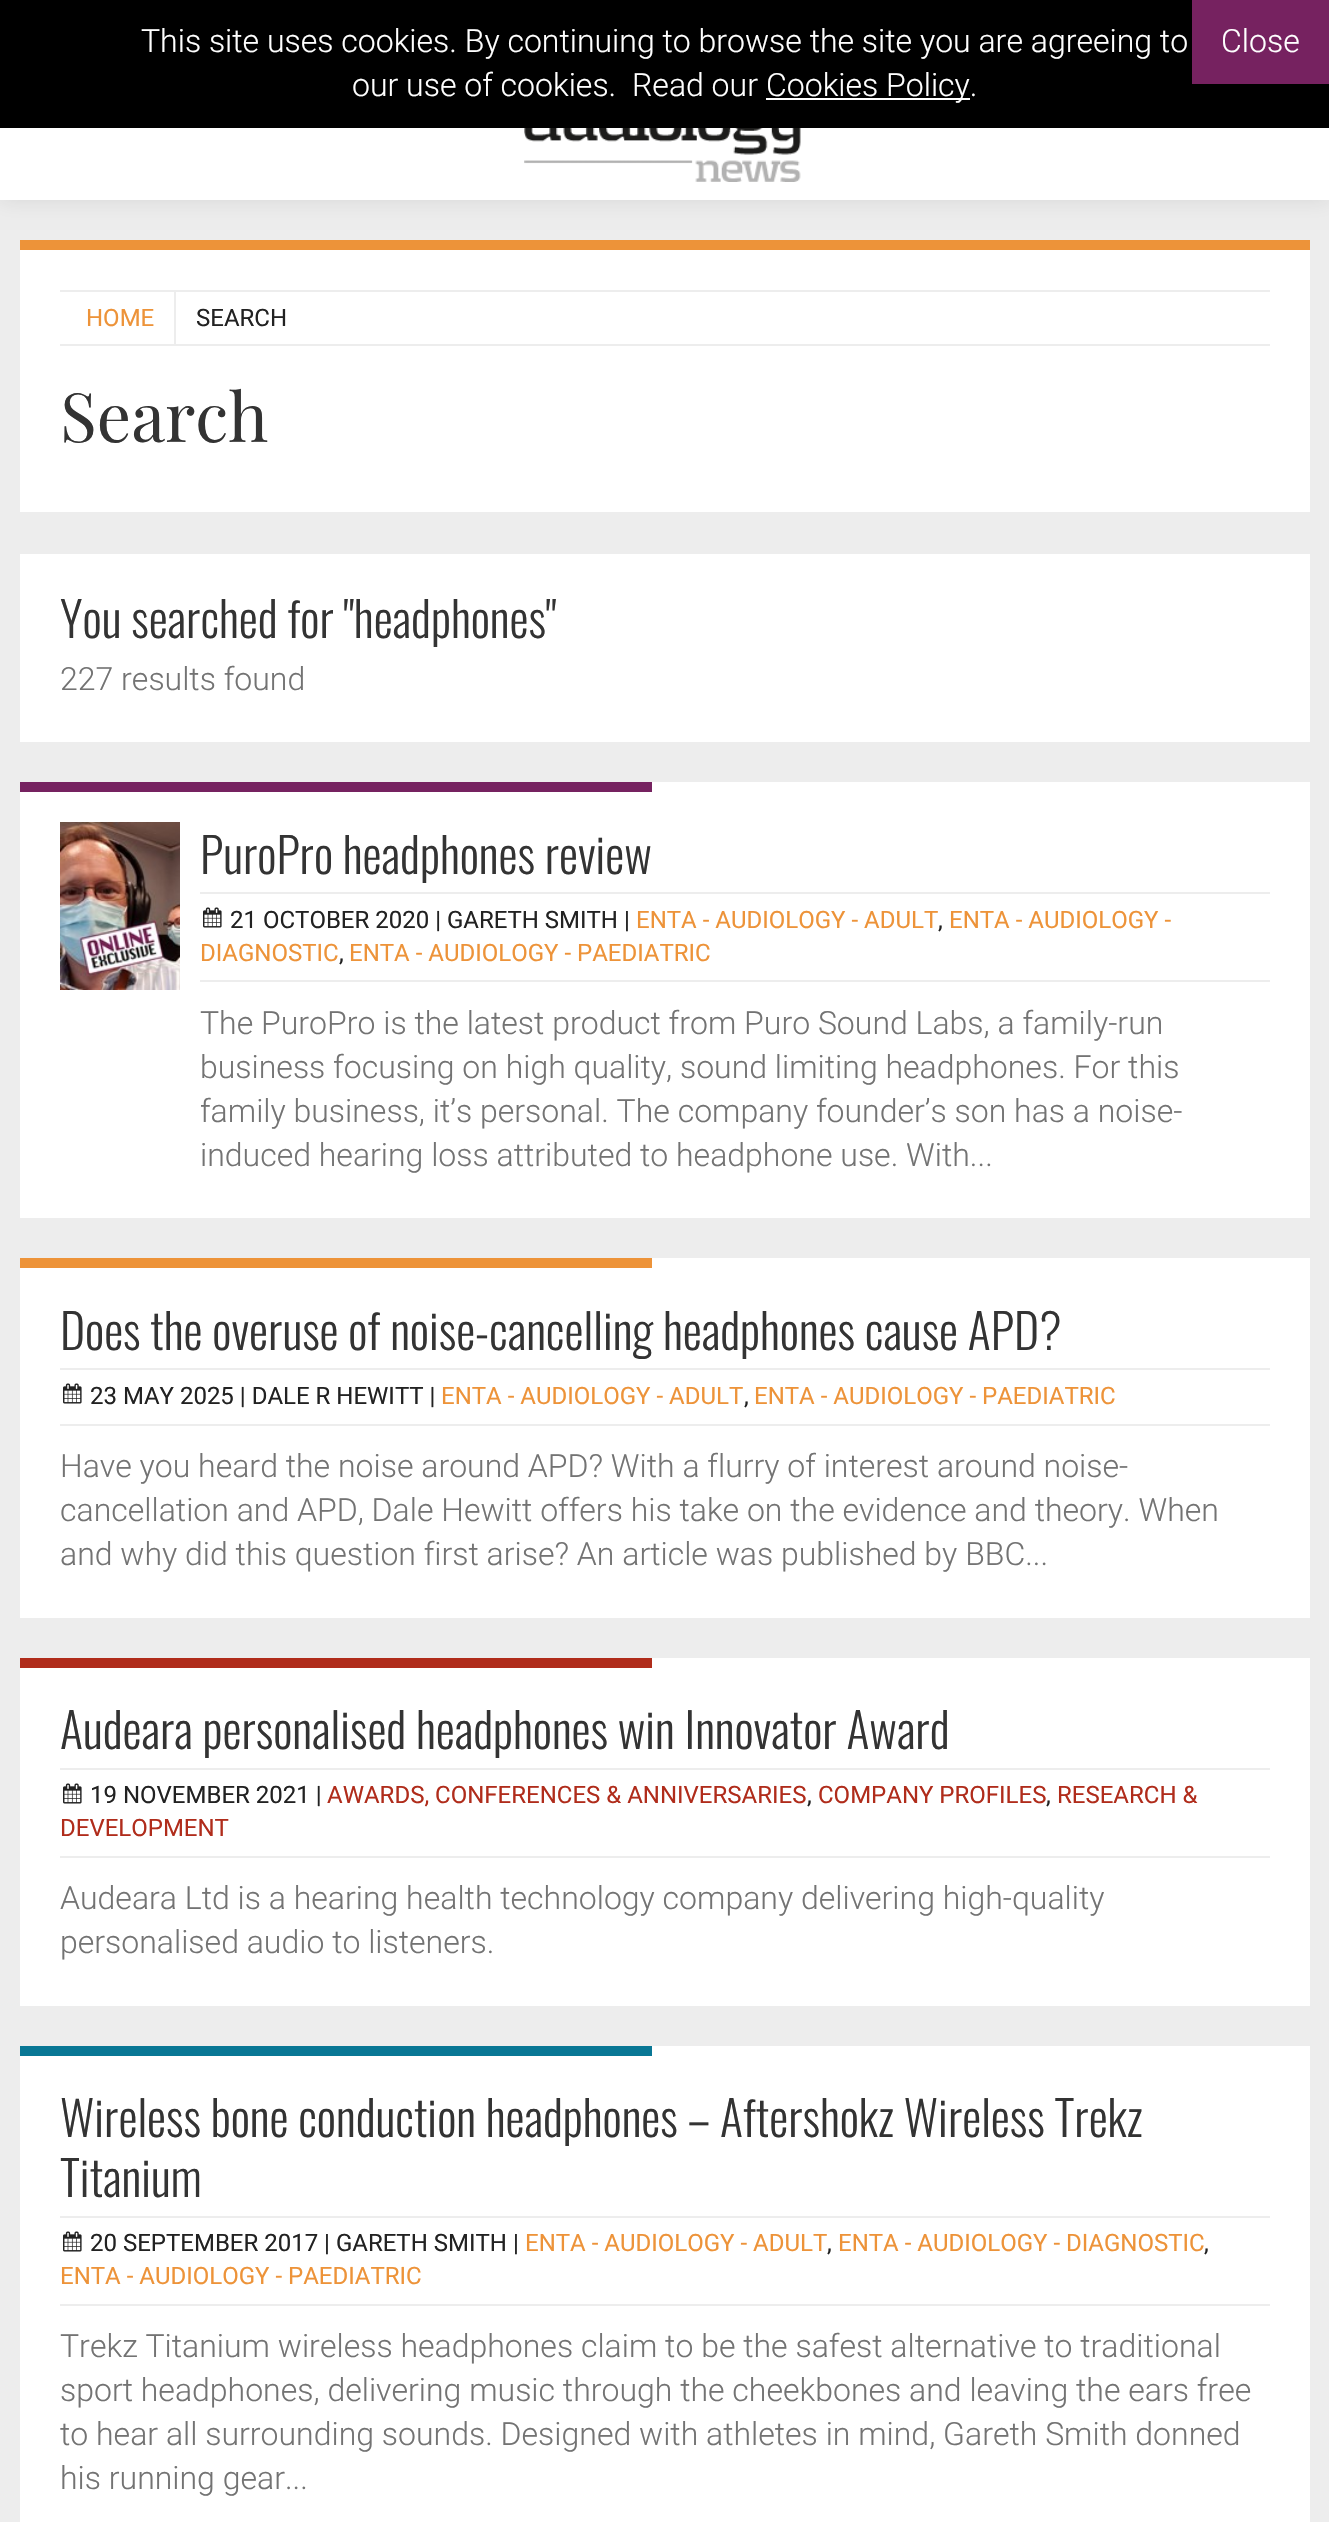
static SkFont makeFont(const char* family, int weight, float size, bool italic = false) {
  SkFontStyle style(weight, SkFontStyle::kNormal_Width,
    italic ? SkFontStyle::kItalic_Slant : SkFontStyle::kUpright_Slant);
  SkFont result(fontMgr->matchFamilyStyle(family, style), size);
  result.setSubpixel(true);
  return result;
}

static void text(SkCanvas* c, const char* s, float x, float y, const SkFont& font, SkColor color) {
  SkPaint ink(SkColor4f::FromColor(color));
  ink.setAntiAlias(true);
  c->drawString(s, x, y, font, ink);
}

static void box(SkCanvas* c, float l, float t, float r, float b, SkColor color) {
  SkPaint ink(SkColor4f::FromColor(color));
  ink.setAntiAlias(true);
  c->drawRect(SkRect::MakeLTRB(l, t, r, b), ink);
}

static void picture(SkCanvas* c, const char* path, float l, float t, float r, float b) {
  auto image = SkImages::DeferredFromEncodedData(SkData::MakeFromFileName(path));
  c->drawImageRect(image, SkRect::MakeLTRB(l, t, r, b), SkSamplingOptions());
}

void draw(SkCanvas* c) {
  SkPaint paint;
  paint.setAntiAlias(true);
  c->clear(0xffededed);
  paint.setColor(0x1a000000);
  paint.setMaskFilter(SkMaskFilter::MakeBlur(kNormal_SkBlurStyle, 10));
  c->drawRect(SkRect::MakeLTRB(0, 0, 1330, 200), paint);
  paint.setMaskFilter(nullptr);
  box(c, 0, 0, 1329, 128, 0xff000000);
  SkFont face1 = makeFont("Roboto", 300, 32);
  text(c, "This site uses cookies. By continuing to browse the site you are agreeing to", 141, 52, face1, 0xffffffff);
  text(c, "our use of cookies.", 352, 96, face1, 0xffffffff);
  text(c, "Read our", 632, 96, face1, 0xffffffff);
  box(c, 766, 98, 970, 100, 0xffffffff);
  text(c, "Cookies Policy.", 766, 96, face1, 0xffffffff);
  box(c, 1192, 0, 1329, 84, 0xff762260);
  text(c, "Close", 1221, 52, face1, 0xffffffff);
  box(c, 0, 128, 1329, 200, 0xffffffff);
  picture(c, "img_01.png", 524, 128, 801, 182);
  box(c, 20, 250, 1310, 512, 0xffffffff);
  box(c, 20, 240, 1310, 250, 0xffed9339);
  box(c, 60, 290, 1270, 292, 0xffededed);
  box(c, 60, 344, 1270, 346, 0xffededed);
  box(c, 174, 292, 176, 344, 0xffededed);
  SkFont face2 = makeFont("Roboto", 400, 24);
  text(c, "HOME", 86, 326, face2, 0xffed9339);
  text(c, "SEARCH", 196, 326, face2, 0xff222222);
  SkFont face3 = makeFont("Playfair Display", 400, 68);
  text(c, "Search", 60, 442, face3, 0xff333333);
  box(c, 20, 554, 1310, 742, 0xffffffff);
  SkFont face4 = makeFont("Oswald", 300, 48);
  text(c, "You searched for \"headphones\"", 60, 638, face4, 0xff333333);
  text(c, "227 results found", 60, 690, face1, 0xff737373);
  box(c, 20, 782, 1310, 1218, 0xffffffff);
  box(c, 20, 782, 652, 792, 0xff762260);
  picture(c, "img_02.png", 60, 822, 180, 990);
  text(c, "PuroPro headphones review", 200, 874, face4, 0xff333333);
  box(c, 200, 892, 1270, 894, 0xffededed);
  box(c, 200, 980, 1270, 982, 0xffededed);
  picture(c, "img_03.png", 203, 907, 222, 928);
  text(c, "21 OCTOBER 2020 | GARETH SMITH |", 230, 928, face2, 0xff222222);
  text(c, "ENTA - AUDIOLOGY - ADULT", 636, 928, face2, 0xffed9339);
  text(c, ",", 938, 928, face2, 0xff222222);
  text(c, "ENTA - AUDIOLOGY -", 949, 928, face2, 0xffed9339);
  text(c, "DIAGNOSTIC", 200, 961, face2, 0xffed9339);
  text(c, ",", 339, 961, face2, 0xff222222);
  text(c, "ENTA - AUDIOLOGY - PAEDIATRIC", 349, 961, face2, 0xffed9339);
  text(c, "The PuroPro is the latest product from Puro Sound Labs, a family-run", 200, 1034, face1, 0xff737373);
  text(c, "business focusing on high quality, sound limiting headphones. For this", 200, 1078, face1, 0xff737373);
  text(c, "family business, it’s personal. The company founder’s son has a noise-", 200, 1122, face1, 0xff737373);
  text(c, "induced hearing loss attributed to headphone use. With...", 200, 1166, face1, 0xff737373);
  box(c, 20, 1258, 1310, 1618, 0xffffffff);
  box(c, 20, 1258, 652, 1268, 0xffed9339);
  text(c, "Does the overuse of noise-cancelling headphones cause APD?", 60, 1350, face4, 0xff333333);
  box(c, 60, 1368, 1270, 1370, 0xffededed);
  box(c, 60, 1424, 1270, 1426, 0xffededed);
  picture(c, "img_03.png", 63, 1383, 82, 1404);
  text(c, "23 MAY 2025 | DALE R HEWITT |", 90, 1404, face2, 0xff222222);
  text(c, "ENTA - AUDIOLOGY - ADULT", 441, 1404, face2, 0xffed9339);
  text(c, ",", 744, 1404, face2, 0xff222222);
  text(c, "ENTA - AUDIOLOGY - PAEDIATRIC", 754, 1404, face2, 0xffed9339);
  text(c, "Have you heard the noise around APD? With a flurry of interest around noise-", 60, 1477, face1, 0xff737373);
  text(c, "cancellation and APD, Dale Hewitt offers his take on the evidence and theory. When", 60, 1521, face1, 0xff737373);
  text(c, "and why did this question first arise? An article was published by BBC...", 60, 1565, face1, 0xff737373);
  box(c, 20, 1658, 1310, 2006, 0xffffffff);
  box(c, 20, 1658, 652, 1668, 0xffb02c1b);
  text(c, "Audeara personalised headphones win Innovator Award", 60, 1749, face4, 0xff333333);
  box(c, 60, 1768, 1270, 1770, 0xffededed);
  box(c, 60, 1856, 1270, 1858, 0xffededed);
  picture(c, "img_03.png", 63, 1783, 82, 1804);
  text(c, "19 NOVEMBER 2021 |", 90, 1803, face2, 0xff222222);
  text(c, "AWARDS, CONFERENCES & ANNIVERSARIES", 327, 1803, face2, 0xffb02c1b);
  text(c, ",", 807, 1803, face2, 0xff222222);
  text(c, "COMPANY PROFILES", 818, 1803, face2, 0xffb02c1b);
  text(c, ",", 1046, 1803, face2, 0xff222222);
  text(c, "RESEARCH &", 1057, 1803, face2, 0xffb02c1b);
  text(c, "DEVELOPMENT", 60, 1836, face2, 0xffb02c1b);
  text(c, "Audeara Ltd is a hearing health technology company delivering high-quality", 60, 1909, face1, 0xff737373);
  text(c, "personalised audio to listeners.", 60, 1953, face1, 0xff737373);
  box(c, 20, 2046, 1310, 2522, 0xffffffff);
  box(c, 20, 2046, 652, 2056, 0xff097795);
  text(c, "Wireless bone conduction headphones – Aftershokz Wireless Trekz", 60, 2137, face4, 0xff333333);
  text(c, "Titanium", 60, 2197, face4, 0xff333333);
  box(c, 60, 2216, 1270, 2218, 0xffededed);
  box(c, 60, 2304, 1270, 2306, 0xffededed);
  picture(c, "img_03.png", 63, 2231, 82, 2252);
  text(c, "20 SEPTEMBER 2017 | GARETH SMITH |", 90, 2251, face2, 0xff222222);
  text(c, "ENTA - AUDIOLOGY - ADULT", 525, 2251, face2, 0xffed9339);
  text(c, ",", 827, 2251, face2, 0xff222222);
  text(c, "ENTA - AUDIOLOGY - DIAGNOSTIC", 838, 2251, face2, 0xffed9339);
  text(c, ",", 1204, 2251, face2, 0xff222222);
  text(c, "ENTA - AUDIOLOGY - PAEDIATRIC", 60, 2284, face2, 0xffed9339);
  text(c, "Trekz Titanium wireless headphones claim to be the safest alternative to traditional", 60, 2357, face1, 0xff737373);
  text(c, "sport headphones, delivering music through the cheekbones and leaving the ears free", 60, 2401, face1, 0xff737373);
  text(c, "to hear all surrounding sounds. Designed with athletes in mind, Gareth Smith donned", 60, 2445, face1, 0xff737373);
  text(c, "his running gear...", 60, 2489, face1, 0xff737373);
}
